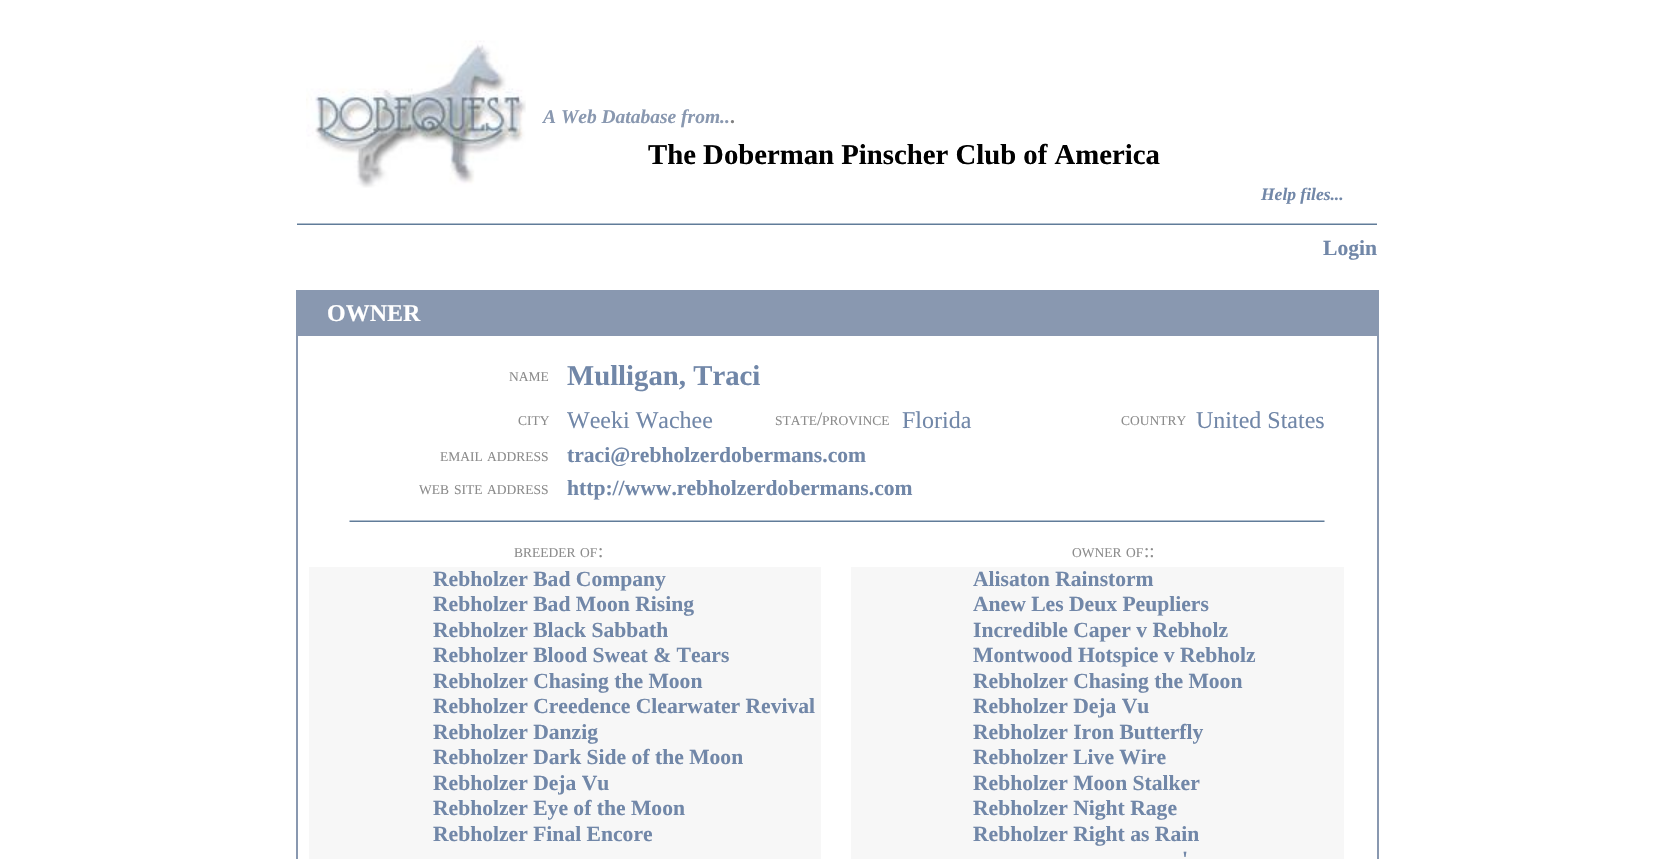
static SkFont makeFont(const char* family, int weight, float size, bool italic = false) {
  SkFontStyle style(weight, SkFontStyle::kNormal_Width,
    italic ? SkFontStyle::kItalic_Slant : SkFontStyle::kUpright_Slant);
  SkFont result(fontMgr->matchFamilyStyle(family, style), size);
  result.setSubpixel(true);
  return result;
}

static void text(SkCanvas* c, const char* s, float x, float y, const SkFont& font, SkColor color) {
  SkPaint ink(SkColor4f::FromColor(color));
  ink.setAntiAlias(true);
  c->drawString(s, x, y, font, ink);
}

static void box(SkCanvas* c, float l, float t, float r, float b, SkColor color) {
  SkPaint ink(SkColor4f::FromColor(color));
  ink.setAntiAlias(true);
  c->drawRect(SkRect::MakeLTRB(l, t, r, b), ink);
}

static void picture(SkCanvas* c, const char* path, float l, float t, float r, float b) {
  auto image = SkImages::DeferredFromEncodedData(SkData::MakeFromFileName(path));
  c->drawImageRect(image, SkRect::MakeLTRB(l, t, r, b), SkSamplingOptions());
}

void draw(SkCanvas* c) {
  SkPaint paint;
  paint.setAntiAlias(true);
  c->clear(0xffffffff);
  picture(c, "img_01.png", 306, 40, 526, 188);
  SkFont face1 = makeFont("Liberation Serif", 700, 19.5f, true);
  text(c, "A Web Database from..", 543, 123, face1, 0xff8998b0);
  SkFont face2 = makeFont("Liberation Serif", 700, 19.5f);
  text(c, ".", 730, 123, face2, 0xff808080);
  SkFont face3 = makeFont("Liberation Serif", 700, 28.75f);
  text(c, "The Doberman Pinscher Club of America", 648, 164, face3, 0xff000000);
  SkFont face4 = makeFont("Liberation Serif", 700, 17.5f, true);
  text(c, "Help files...", 1261, 200, face4, 0xff7187a8);
  picture(c, "img_02.png", 297, 223, 1377, 225);
  SkFont face5 = makeFont("Liberation Serif", 700, 21.6f);
  text(c, "Login", 1323, 255, face5, 0xff7187a8);
  box(c, 296, 290, 1379, 292, 0xff8998b0);
  box(c, 1377, 290, 1379, 859, 0xff8998b0);
  box(c, 296, 290, 298, 859, 0xff8998b0);
  box(c, 298, 292, 1377, 336, 0xff8998b0);
  SkFont face6 = makeFont("Liberation Serif", 700, 24);
  text(c, "OWNER", 327, 321, face6, 0xffffffff);
  SkFont face7 = makeFont("Liberation Serif", 400, 13.5f);
  text(c, "NAME", 509, 381, face7, 0xff8c8c8c);
  text(c, "Mulligan, Traci", 567, 385, face3, 0xff7187a8);
  text(c, "CITY", 518, 425, face7, 0xff8c8c8c);
  SkFont face8 = makeFont("Liberation Serif", 400, 24);
  text(c, "Weeki Wachee", 567, 428, face8, 0xff7187a8);
  text(c, "STATE", 775, 425, face7, 0xff8c8c8c);
  SkFont face9 = makeFont("Liberation Serif", 400, 19);
  text(c, "/", 817, 425, face9, 0xff8c8c8c);
  text(c, "PROVINCE", 822, 425, face7, 0xff8c8c8c);
  text(c, "Florida", 902, 428, face8, 0xff7187a8);
  text(c, "COUNTRY", 1121, 425, face7, 0xff8c8c8c);
  text(c, "United States", 1196, 428, face8, 0xff7187a8);
  text(c, "EMAIL", 440, 461, face7, 0xff8c8c8c);
  text(c, "ADDRESS", 487, 461, face7, 0xff8c8c8c);
  text(c, "traci@rebholzerdobermans.com", 567, 462, face5, 0xff7187a8);
  text(c, "WEB", 419, 494, face7, 0xff8c8c8c);
  text(c, "SITE", 454, 494, face7, 0xff8c8c8c);
  text(c, "ADDRESS", 487, 494, face7, 0xff8c8c8c);
  text(c, "http://www.rebholzerdobermans.com", 567, 495, face5, 0xff7187a8);
  picture(c, "img_03.png", 349, 520, 1325, 522);
  text(c, "BREEDER", 514, 557, face7, 0xff8c8c8c);
  text(c, "OF", 580, 557, face7, 0xff8c8c8c);
  text(c, ":", 598, 557, face9, 0xff8c8c8c);
  text(c, "OWNER", 1072, 557, face7, 0xff8c8c8c);
  text(c, "OF", 1126, 557, face7, 0xff8c8c8c);
  text(c, "::", 1144, 557, face9, 0xff8c8c8c);
  box(c, 309, 567, 821, 859, 0xfff7f7f7);
  box(c, 851, 567, 1344, 859, 0xfff7f7f7);
  text(c, "Rebholzer Bad Company", 433, 586, face5, 0xff7187a8);
  text(c, "Rebholzer Bad Moon Rising", 433, 611, face5, 0xff7187a8);
  text(c, "Rebholzer Black Sabbath", 433, 637, face5, 0xff7187a8);
  text(c, "Rebholzer Blood Sweat & Tears", 433, 662, face5, 0xff7187a8);
  text(c, "Rebholzer Chasing the Moon", 433, 688, face5, 0xff7187a8);
  text(c, "Rebholzer Creedence Clearwater Revival", 433, 713, face5, 0xff7187a8);
  text(c, "Rebholzer Danzig", 433, 739, face5, 0xff7187a8);
  text(c, "Rebholzer Dark Side of the Moon", 433, 764, face5, 0xff7187a8);
  text(c, "Rebholzer Deja Vu", 433, 790, face5, 0xff7187a8);
  text(c, "Rebholzer Eye of the Moon", 433, 815, face5, 0xff7187a8);
  text(c, "Rebholzer Final Encore", 433, 841, face5, 0xff7187a8);
  text(c, "Alisaton Rainstorm", 973, 586, face5, 0xff7187a8);
  text(c, "Anew Les Deux Peupliers", 973, 611, face5, 0xff7187a8);
  text(c, "Incredible Caper v Rebholz", 973, 637, face5, 0xff7187a8);
  text(c, "Montwood Hotspice v Rebholz", 973, 662, face5, 0xff7187a8);
  text(c, "Rebholzer Chasing the Moon", 973, 688, face5, 0xff7187a8);
  text(c, "Rebholzer Deja Vu", 973, 713, face5, 0xff7187a8);
  text(c, "Rebholzer Iron Butterfly", 973, 739, face5, 0xff7187a8);
  text(c, "Rebholzer Live Wire", 973, 764, face5, 0xff7187a8);
  text(c, "Rebholzer Moon Stalker", 973, 790, face5, 0xff7187a8);
  text(c, "Rebholzer Night Rage", 973, 815, face5, 0xff7187a8);
  text(c, "Rebholzer Right as Rain", 973, 841, face5, 0xff7187a8);
  text(c, "'", 1182, 866, face5, 0xff7187a8);
}
